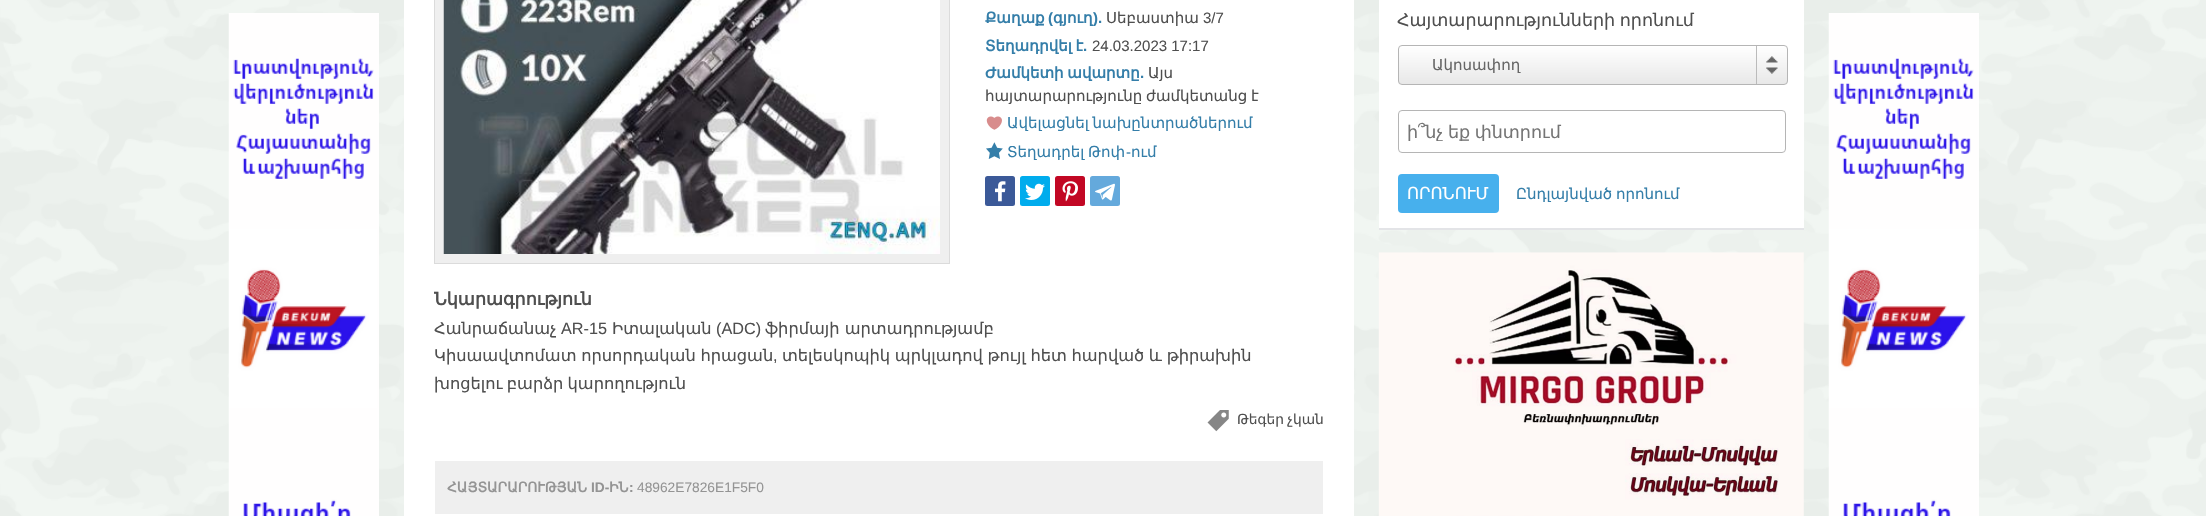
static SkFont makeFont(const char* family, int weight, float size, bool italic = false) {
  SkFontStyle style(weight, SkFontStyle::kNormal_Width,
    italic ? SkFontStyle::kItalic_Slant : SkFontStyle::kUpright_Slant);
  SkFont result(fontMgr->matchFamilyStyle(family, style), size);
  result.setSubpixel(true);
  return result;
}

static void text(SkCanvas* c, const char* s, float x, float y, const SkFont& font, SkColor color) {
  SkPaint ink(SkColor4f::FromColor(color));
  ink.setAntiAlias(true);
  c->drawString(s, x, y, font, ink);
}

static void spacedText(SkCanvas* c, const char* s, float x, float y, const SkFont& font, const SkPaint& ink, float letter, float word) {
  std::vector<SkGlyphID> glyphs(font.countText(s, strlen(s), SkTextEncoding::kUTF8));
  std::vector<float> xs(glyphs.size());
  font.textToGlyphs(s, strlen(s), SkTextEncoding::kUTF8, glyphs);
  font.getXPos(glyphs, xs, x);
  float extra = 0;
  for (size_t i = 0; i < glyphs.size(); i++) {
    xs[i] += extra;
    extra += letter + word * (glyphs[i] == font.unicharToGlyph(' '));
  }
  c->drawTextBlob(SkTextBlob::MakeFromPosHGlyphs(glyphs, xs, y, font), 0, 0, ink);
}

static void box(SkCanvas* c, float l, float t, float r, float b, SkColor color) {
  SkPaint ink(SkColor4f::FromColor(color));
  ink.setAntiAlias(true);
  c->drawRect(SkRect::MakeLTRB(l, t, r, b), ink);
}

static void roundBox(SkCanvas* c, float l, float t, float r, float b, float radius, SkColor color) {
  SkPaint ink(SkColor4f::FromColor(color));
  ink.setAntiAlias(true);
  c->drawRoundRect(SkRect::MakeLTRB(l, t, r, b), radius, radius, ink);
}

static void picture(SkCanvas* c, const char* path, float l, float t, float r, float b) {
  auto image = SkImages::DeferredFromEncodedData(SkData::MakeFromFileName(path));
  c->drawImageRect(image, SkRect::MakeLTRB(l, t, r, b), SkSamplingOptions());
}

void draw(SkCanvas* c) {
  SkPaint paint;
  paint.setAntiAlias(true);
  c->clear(0xfff3f8f4);
  picture(c, "img_01.png", 0, 0, 2206, 516);
  box(c, 404, 0, 1354, 516, 0xffffffff);
  paint.setColor(0xffefefef);
  c->drawRect(SkRect::MakeLTRB(434.5f, -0.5f, 949.5f, 263.5f), paint);
  paint.setStyle(SkPaint::kStroke_Style);
  paint.setStrokeWidth(1);
  paint.setColor(0xffdbdbdb);
  c->drawRect(SkRect::MakeLTRB(434.5f, -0.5f, 949.5f, 263.5f), paint);
  picture(c, "img_02.png", 443, 0, 940, 254);
  SkFont face1 = makeFont("DejaVu Sans", 700, 15);
  text(c, "Քաղաք", 985, 23, face1, 0xff347ea9);
  SkFont face2 = makeFont("Liberation Sans", 700, 15);
  text(c, "(", 1048, 23, face2, 0xff347ea9);
  text(c, "գյուղ", 1053, 23, face1, 0xff347ea9);
  text(c, ").", 1093, 23, face2, 0xff347ea9);
  SkFont face3 = makeFont("DejaVu Sans", 400, 15);
  text(c, "Սեբաստիա", 1106, 23, face3, 0xff4f4f4f);
  SkFont face4 = makeFont("Liberation Sans", 400, 15);
  text(c, "3/7", 1203, 23, face4, 0xff4f4f4f);
  paint.setStyle(SkPaint::kFill_Style);
  paint.setColor(0xff347ea9);
  spacedText(c, "Տեղադրվել է", 985, 51, face1, paint, 0, -1);
  text(c, ".", 1083, 51, face2, 0xff347ea9);
  text(c, "24.03.2023 17:17", 1092, 51, face4, 0xff4f4f4f);
  spacedText(c, "Ժամկետի ավարտը", 985, 78, face1, paint, 0, -1);
  text(c, ".", 1140, 78, face2, 0xff347ea9);
  text(c, "Այս", 1148, 78, face3, 0xff4f4f4f);
  paint.setColor(0xff4f4f4f);
  spacedText(c, "հայտարարությունը ժամկետանց է", 985, 101, face3, paint, 0, -1);
  picture(c, "img_03.png", 986, 116, 1002, 130);
  paint.setColor(0xff347ea9);
  spacedText(c, "Ավելացնել նախընտրածներում", 1007, 128, face3, paint, 0, -1);
  picture(c, "img_04.png", 986, 142, 1003, 159);
  spacedText(c, "Տեղադրել Թոփ", 1007, 157, face3, paint, 0, -1);
  text(c, "-", 1126, 157, face4, 0xff347ea9);
  text(c, "ում", 1131, 157, face3, 0xff347ea9);
  roundBox(c, 985, 176, 1015, 206, 2.5f, 0xff3b5998);
  picture(c, "img_05.png", 995, 181, 1006, 202);
  roundBox(c, 1020, 176, 1050, 206, 2.5f, 0xff00aced);
  picture(c, "img_06.png", 1025, 183, 1045, 200);
  roundBox(c, 1055, 176, 1085, 206, 2.5f, 0xffc20724);
  picture(c, "img_07.png", 1062, 181, 1078, 202);
  roundBox(c, 1090, 176, 1120, 206, 2.5f, 0xff64a9dc);
  picture(c, "img_08.png", 1095, 183, 1115, 201);
  SkFont face5 = makeFont("DejaVu Sans", 700, 17.5f);
  text(c, "Նկարագրություն", 434, 305, face5, 0xff4f4f4f);
  SkFont face6 = makeFont("DejaVu Sans", 400, 16.25f);
  text(c, "Հանրաճանաչ", 434, 334, face6, 0xff4f4f4f);
  SkFont face7 = makeFont("Liberation Sans", 400, 16.25f);
  text(c, "AR-15", 561, 334, face7, 0xff4f4f4f);
  text(c, "Իտալական", 612, 334, face6, 0xff4f4f4f);
  text(c, "(ADC)", 716, 334, face7, 0xff4f4f4f);
  text(c, "ֆիրմայի արտադրությամբ", 765, 334, face6, 0xff4f4f4f);
  paint.setColor(0xff4f4f4f);
  spacedText(c, "Կիսաավտոմատ որսորդական հրացան", 434, 361, face6, paint, 0, -0.5f);
  text(c, ",", 773, 361, face7, 0xff4f4f4f);
  spacedText(c, "տելեսկոպիկ պրկլադով թույլ հետ հարված և թիրախին", 782, 361, face6, paint, 0, -0.5f);
  spacedText(c, "խոցելու բարձր կարողություն", 434, 389, face6, paint, 0, -1);
  picture(c, "img_09.png", 1207, 410, 1229, 432);
  SkFont face8 = makeFont("DejaVu Sans", 400, 13.75f);
  spacedText(c, "Թեգեր չկան", 1237, 424, face8, paint, 0, -1);
  box(c, 435, 461, 1323, 514, 0xffefefef);
  SkFont face9 = makeFont("DejaVu Sans", 700, 13.75f);
  text(c, "ՀԱՅՏԱՐԱՐՈՒԹՅԱՆ", 447, 492, face9, 0xff949494);
  SkFont face10 = makeFont("Liberation Sans", 700, 13.75f);
  text(c, "ID-", 591, 492, face10, 0xff949494);
  text(c, "ԻՆ", 609, 492, face9, 0xff949494);
  text(c, ":", 629, 492, face10, 0xff949494);
  SkFont face11 = makeFont("Liberation Sans", 400, 13.75f);
  text(c, "48962E7826E1F5F0", 637, 492, face11, 0xff949494);
  paint.setColor(0xffe3e4e7);
  c->drawPath(SkPathBuilder().moveTo(1379, 228).lineTo(1379, 230).lineTo(1804, 230).lineTo(1804, 0).lineTo(1804, 228).close().detach(), paint);
  box(c, 1379, 0, 1804, 228, 0xffffffff);
  SkFont face12 = makeFont("DejaVu Sans", 400, 17.5f);
  paint.setColor(0xff4f4f4f);
  spacedText(c, "Հայտարարությունների որոնում", 1397, 26, face12, paint, 0, -1);
  c->save();
  c->clipPath(SkPathBuilder().moveTo(1402, 45).lineTo(1784, 45).cubicTo(1786, 45, 1788, 47, 1788, 49).lineTo(1788, 81).cubicTo(1788, 83, 1786, 85, 1784, 85).lineTo(1402, 85).cubicTo(1400, 85, 1398, 83, 1398, 81).lineTo(1398, 49).cubicTo(1398, 47, 1400, 45, 1402, 45).close().detach(), true);
  {
    const SkColor colors[] = {0xffffffff, 0xffe8e8e8};
    const float stops[] = {0, 1};
    const SkPoint ends[] = {{1593, 46}, {1593, 84}};
    paint.setShader(SkGradientShader::MakeLinear(ends, colors, stops, 2, SkTileMode::kClamp));
    paint.setAlpha(255);
  }
  c->drawRect(SkRect::MakeLTRB(1398, 46, 1788, 84), paint);
  c->restore();
  paint.setStyle(SkPaint::kStroke_Style);
  paint.setShader(nullptr);
  paint.setColor(0xffb5b5b5);
  c->drawRoundRect(SkRect::MakeLTRB(1398.5f, 45.5f, 1787.5f, 84.5f), 3.5f, 3.5f, paint);
  text(c, "Ակոսափող", 1432, 70, face3, 0xff666666);
  picture(c, "img_10.png", 1766, 56, 1778, 74);
  box(c, 1756, 46, 1757, 84, 0xffbbbbbb);
  c->drawRoundRect(SkRect::MakeLTRB(1398.5f, 110.5f, 1785.5f, 152.5f), 3.5f, 3.5f, paint);
  c->save();
  c->clipRect(SkRect::MakeLTRB(1408, 121, 1776, 141));
  paint.setStyle(SkPaint::kFill_Style);
  paint.setColor(0xff757575);
  spacedText(c, "ի՞նչ եք փնտրում", 1407, 138, face12, paint, 0, -1);
  c->restore();
  roundBox(c, 1398, 174, 1499, 213, 4, 0xff47b0ed);
  SkFont face13 = makeFont("DejaVu Sans", 400, 16.5f);
  text(c, "ՈՐՈՆՈՒՄ", 1407, 199, face13, 0xffffffff);
  paint.setColor(0xff347ea9);
  spacedText(c, "Ընդլայնված որոնում", 1516, 199, face3, paint, 0, -1);
  picture(c, "img_11.png", 1378, 252, 1804, 516);
  picture(c, "img_12.png", 228, 13, 379, 516);
  picture(c, "img_13.png", 1828, 13, 1979, 516);
}
